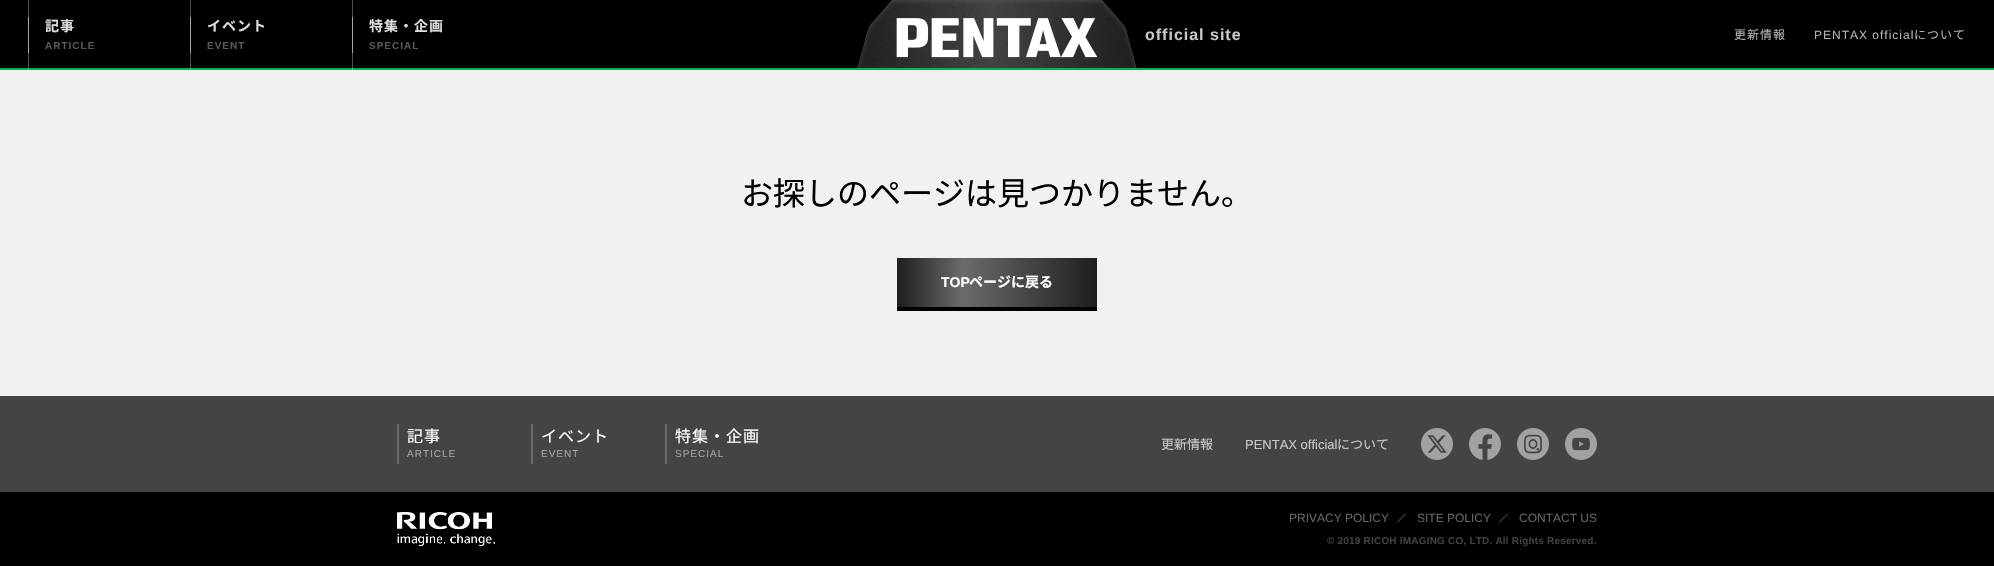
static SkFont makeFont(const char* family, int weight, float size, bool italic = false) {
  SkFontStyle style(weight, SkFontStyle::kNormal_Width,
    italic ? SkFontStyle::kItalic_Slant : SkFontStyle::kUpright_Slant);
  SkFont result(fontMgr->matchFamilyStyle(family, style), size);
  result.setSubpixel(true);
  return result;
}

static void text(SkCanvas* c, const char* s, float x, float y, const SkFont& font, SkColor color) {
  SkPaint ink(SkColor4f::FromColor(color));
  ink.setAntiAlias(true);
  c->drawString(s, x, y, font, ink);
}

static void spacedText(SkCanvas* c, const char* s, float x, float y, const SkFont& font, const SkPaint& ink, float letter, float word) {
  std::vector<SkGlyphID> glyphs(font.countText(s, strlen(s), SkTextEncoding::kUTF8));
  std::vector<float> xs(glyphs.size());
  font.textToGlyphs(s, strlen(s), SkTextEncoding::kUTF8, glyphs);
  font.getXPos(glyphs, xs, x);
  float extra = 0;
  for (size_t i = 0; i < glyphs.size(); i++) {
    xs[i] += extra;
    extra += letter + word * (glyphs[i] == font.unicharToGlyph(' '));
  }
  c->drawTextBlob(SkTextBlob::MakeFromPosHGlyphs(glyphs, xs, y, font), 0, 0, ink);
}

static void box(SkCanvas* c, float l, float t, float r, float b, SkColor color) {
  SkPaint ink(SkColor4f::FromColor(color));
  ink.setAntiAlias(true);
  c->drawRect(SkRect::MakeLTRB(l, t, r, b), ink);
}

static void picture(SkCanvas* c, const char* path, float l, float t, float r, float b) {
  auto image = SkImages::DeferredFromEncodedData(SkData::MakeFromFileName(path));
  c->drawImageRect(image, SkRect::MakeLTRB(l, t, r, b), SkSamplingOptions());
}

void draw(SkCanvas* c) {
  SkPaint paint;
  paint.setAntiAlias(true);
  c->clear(0xfff1f1f1);
  box(c, 0, 0, 1994, 68, 0xff000000);
  box(c, 352, 0, 353, 70, 0xff4d4d4d);
  box(c, 190, 0, 191, 70, 0xff4d4d4d);
  box(c, 28, 0, 29, 70, 0xff4d4d4d);
  box(c, 28, 17, 29, 53, 0xffa6a6a6);
  SkFont face1 = makeFont("Noto Sans JP", 700, 14);
  paint.setColor(0xffdddddd);
  spacedText(c, "記事", 45, 31, face1, paint, 1, 0);
  SkFont face2 = makeFont("Liberation Sans", 700, 10);
  paint.setColor(0xff585858);
  spacedText(c, "ARTICLE", 45, 49, face2, paint, 1, 0);
  box(c, 190, 17, 191, 53, 0xffa6a6a6);
  paint.setColor(0xffdddddd);
  spacedText(c, "イベント", 207, 31, face1, paint, 1, 0);
  paint.setColor(0xff585858);
  spacedText(c, "EVENT", 207, 49, face2, paint, 1, 0);
  box(c, 352, 17, 353, 53, 0xffa6a6a6);
  paint.setColor(0xffdddddd);
  spacedText(c, "特集・企画", 369, 31, face1, paint, 1, 0);
  paint.setColor(0xff585858);
  spacedText(c, "SPECIAL", 369, 49, face2, paint, 1, 0);
  picture(c, "img_01.png", 857, 0, 1137, 68);
  SkFont face3 = makeFont("Liberation Sans", 700, 16);
  paint.setColor(0xffc7c7c7);
  spacedText(c, "official site", 1145, 40, face3, paint, 1, 0);
  SkFont face4 = makeFont("Noto Sans JP", 400, 12);
  paint.setColor(0xffb3b3b3);
  spacedText(c, "更新情報", 1734, 39, face4, paint, 1, 0);
  SkFont face5 = makeFont("Liberation Sans", 400, 12);
  spacedText(c, "PENTAX official", 1814, 39, face5, paint, 1, 0);
  spacedText(c, "について", 1914, 39, face4, paint, 1, 0);
  box(c, 0, 68, 1994, 70, 0xff00b551);
  box(c, 352, 68, 353, 70, 0xff4dcb85);
  box(c, 190, 68, 191, 70, 0xff4dcb85);
  box(c, 28, 68, 29, 70, 0xff4dcb85);
  SkFont face6 = makeFont("Noto Sans JP", 400, 32);
  text(c, "お探しのページは見つかりません。", 741, 205, face6, 0xff000000);
  {
    const SkColor colors[] = {0xff1e1e1e, 0xff6b6b6b, 0xff1e1e1e};
    const float stops[] = {0, 0.33f, 1};
    const SkPoint ends[] = {{897, 283}, {1097, 283}};
    paint.setShader(SkGradientShader::MakeLinear(ends, colors, stops, 3, SkTileMode::kClamp));
    paint.setAlpha(255);
  }
  c->drawRect(SkRect::MakeLTRB(897, 258, 1097, 307), paint);
  box(c, 897, 307, 1097, 311, 0xff000000);
  SkFont face7 = makeFont("Liberation Sans", 700, 14);
  text(c, "TOP", 941, 287, face7, 0xffffffff);
  text(c, "ページに戻る", 969, 287, face1, 0xffffffff);
  box(c, 0, 396, 1994, 492, 0xff444444);
  box(c, 397, 424, 399, 464, 0xff6b6b6b);
  SkFont face8 = makeFont("Noto Sans JP", 400, 16);
  paint.setShader(nullptr);
  paint.setColor(0xffffffff);
  spacedText(c, "記事", 407, 442, face8, paint, 1, 0);
  SkFont face9 = makeFont("Liberation Sans", 400, 10);
  paint.setColor(0xffa2a2a2);
  spacedText(c, "ARTICLE", 407, 457, face9, paint, 1, 0);
  box(c, 531, 424, 533, 464, 0xff6b6b6b);
  paint.setColor(0xffffffff);
  spacedText(c, "イベント", 541, 442, face8, paint, 1, 0);
  paint.setColor(0xffa2a2a2);
  spacedText(c, "EVENT", 541, 457, face9, paint, 1, 0);
  box(c, 665, 424, 667, 464, 0xff6b6b6b);
  paint.setColor(0xffffffff);
  spacedText(c, "特集・企画", 675, 442, face8, paint, 1, 0);
  paint.setColor(0xffa2a2a2);
  spacedText(c, "SPECIAL", 675, 457, face9, paint, 1, 0);
  SkFont face10 = makeFont("Noto Sans JP", 400, 13);
  text(c, "更新情報", 1161, 449, face10, 0xffc7c7c7);
  SkFont face11 = makeFont("Liberation Sans", 400, 13);
  text(c, "PENTAX official", 1245, 449, face11, 0xffc7c7c7);
  text(c, "について", 1337, 449, face10, 0xffc7c7c7);
  picture(c, "img_02.png", 1421, 428, 1453, 460);
  picture(c, "img_03.png", 1469, 428, 1501, 460);
  picture(c, "img_04.png", 1517, 428, 1549, 460);
  picture(c, "img_05.png", 1565, 428, 1597, 460);
  box(c, 0, 492, 1994, 566, 0xff000000);
  picture(c, "img_06.png", 397, 512, 495, 546);
  text(c, "PRIVACY POLICY", 1289, 522, face5, 0xff666666);
  paint.setColor(0xff606060);
  c->drawPath(SkPathBuilder().moveTo(1405.5f, 513.5f).lineTo(1406, 514).lineTo(1397.5f, 522.5f).lineTo(1397, 522).close().detach(), paint);
  text(c, "SITE POLICY", 1417, 522, face5, 0xff666666);
  c->drawPath(SkPathBuilder().moveTo(1507.5f, 513.5f).lineTo(1508, 514).lineTo(1499.5f, 522.5f).lineTo(1499, 522).close().detach(), paint);
  text(c, "CONTACT US", 1519, 522, face5, 0xff666666);
  paint.setColor(0xff404040);
  spacedText(c, "© 2019 RICOH IMAGING CO, LTD. All Rights Reserved.", 1327, 544, face2, paint, 0.2f, 0);
}
